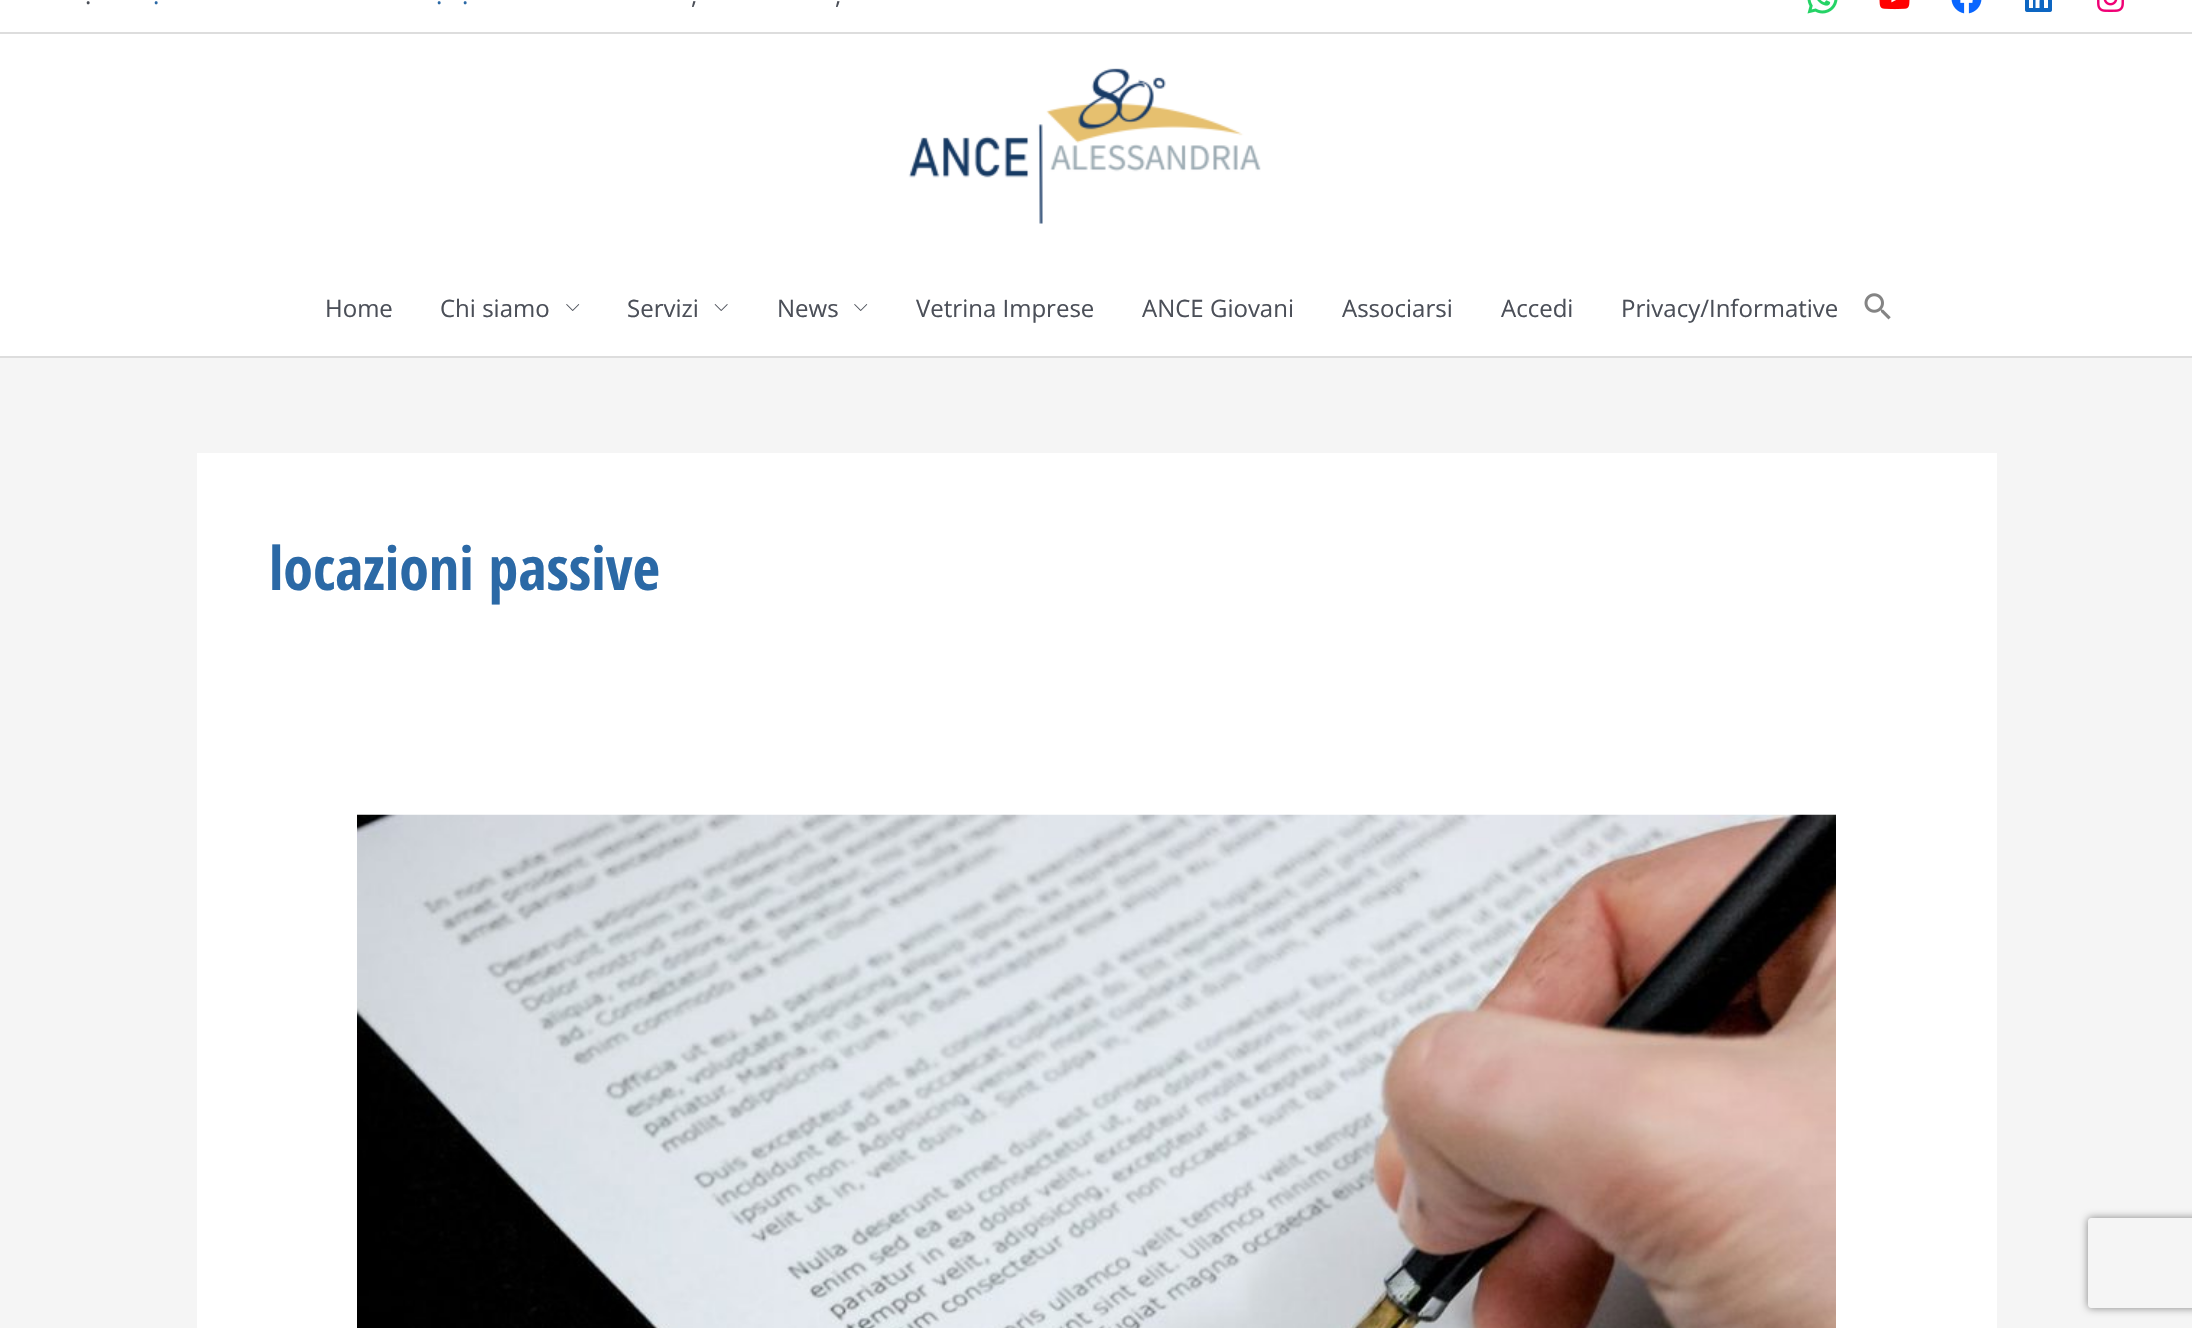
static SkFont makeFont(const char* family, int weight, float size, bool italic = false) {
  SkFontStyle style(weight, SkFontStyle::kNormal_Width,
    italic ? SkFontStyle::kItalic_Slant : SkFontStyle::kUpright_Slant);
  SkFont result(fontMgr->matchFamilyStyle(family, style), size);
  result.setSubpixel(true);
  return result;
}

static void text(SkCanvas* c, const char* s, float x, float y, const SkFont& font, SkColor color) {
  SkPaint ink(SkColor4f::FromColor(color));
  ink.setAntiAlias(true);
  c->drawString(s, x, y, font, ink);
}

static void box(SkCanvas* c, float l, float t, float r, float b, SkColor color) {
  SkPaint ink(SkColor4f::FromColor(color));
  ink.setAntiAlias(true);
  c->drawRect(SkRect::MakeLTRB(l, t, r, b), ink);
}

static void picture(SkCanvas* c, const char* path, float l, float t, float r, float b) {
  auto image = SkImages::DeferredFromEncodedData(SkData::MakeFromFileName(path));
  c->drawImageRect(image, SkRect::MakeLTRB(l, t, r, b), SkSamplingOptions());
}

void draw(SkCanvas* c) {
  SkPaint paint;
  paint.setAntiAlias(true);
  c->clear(0xfff5f5f5);
  box(c, 0, 0, 2192, 32, 0xffffffff);
  box(c, 0, 32, 2192, 34, 0xffdddddd);
  SkFont face1 = makeFont("Open Sans", 400, 24);
  text(c, ".", 85, 4, face1, 0xff4b4f58);
  text(c, ".", 153, 4, face1, 0xff2b69a6);
  text(c, ".", 436, 4, face1, 0xff2b69a6);
  text(c, ".", 462, 4, face1, 0xff2b69a6);
  text(c, ",", 691, 4, face1, 0xff4b4f58);
  text(c, ",", 835, 4, face1, 0xff4b4f58);
  picture(c, "img_01.png", 1807, 0, 1838, 14);
  picture(c, "img_02.png", 1879, 0, 1910, 10);
  picture(c, "img_03.png", 1951, 0, 1982, 14);
  picture(c, "img_04.png", 2025, 0, 2052, 12);
  picture(c, "img_05.png", 2097, 0, 2124, 12);
  box(c, 0, 34, 2192, 356, 0xffffffff);
  box(c, 0, 356, 2192, 358, 0xffdddddd);
  picture(c, "img_06.png", 908, 68, 1261, 224);
  text(c, "Home", 325, 317, face1, 0xff4b4f58);
  text(c, "Chi siamo", 440, 317, face1, 0xff4b4f58);
  picture(c, "img_07.png", 566, 304, 580, 311);
  text(c, "Servizi", 627, 317, face1, 0xff4b4f58);
  picture(c, "img_08.png", 714, 304, 728, 311);
  text(c, "News", 777, 317, face1, 0xff4b4f58);
  picture(c, "img_07.png", 854, 304, 868, 311);
  text(c, "Vetrina Imprese", 916, 317, face1, 0xff4b4f58);
  text(c, "ANCE Giovani", 1142, 317, face1, 0xff4b4f58);
  text(c, "Associarsi", 1342, 317, face1, 0xff4b4f58);
  text(c, "Accedi", 1501, 317, face1, 0xff4b4f58);
  text(c, "Privacy/Informative", 1621, 317, face1, 0xff4b4f58);
  picture(c, "img_09.png", 1864, 293, 1891, 320);
  box(c, 197, 453, 1997, 1328, 0xffffffff);
  SkFont face2 = makeFont("Open Sans Condensed", 700, 60);
  text(c, "locazioni passive", 269, 590, face2, 0xff2b69a6);
  picture(c, "img_10.png", 357, 814, 1836, 1328);
  c->save();
  c->clipPath(SkPathBuilder(SkPathFillType::kEvenOdd).moveTo(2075, 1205).lineTo(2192, 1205).lineTo(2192, 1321).lineTo(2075, 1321).close().moveTo(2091, 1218).lineTo(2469, 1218).cubicTo(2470.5f, 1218, 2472, 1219.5f, 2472, 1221).lineTo(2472, 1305).cubicTo(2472, 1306.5f, 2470.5f, 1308, 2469, 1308).lineTo(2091, 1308).cubicTo(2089.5f, 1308, 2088, 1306.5f, 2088, 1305).lineTo(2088, 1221).cubicTo(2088, 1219.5f, 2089.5f, 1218, 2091, 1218).close().detach(), true);
  paint.setColor(0xff808080);
  paint.setMaskFilter(SkMaskFilter::MakeBlur(kNormal_SkBlurStyle, 4));
  c->drawRoundRect(SkRect::MakeLTRB(2088, 1218, 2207, 1308), 3, 3, paint);
  paint.setMaskFilter(nullptr);
  c->restore();
}
